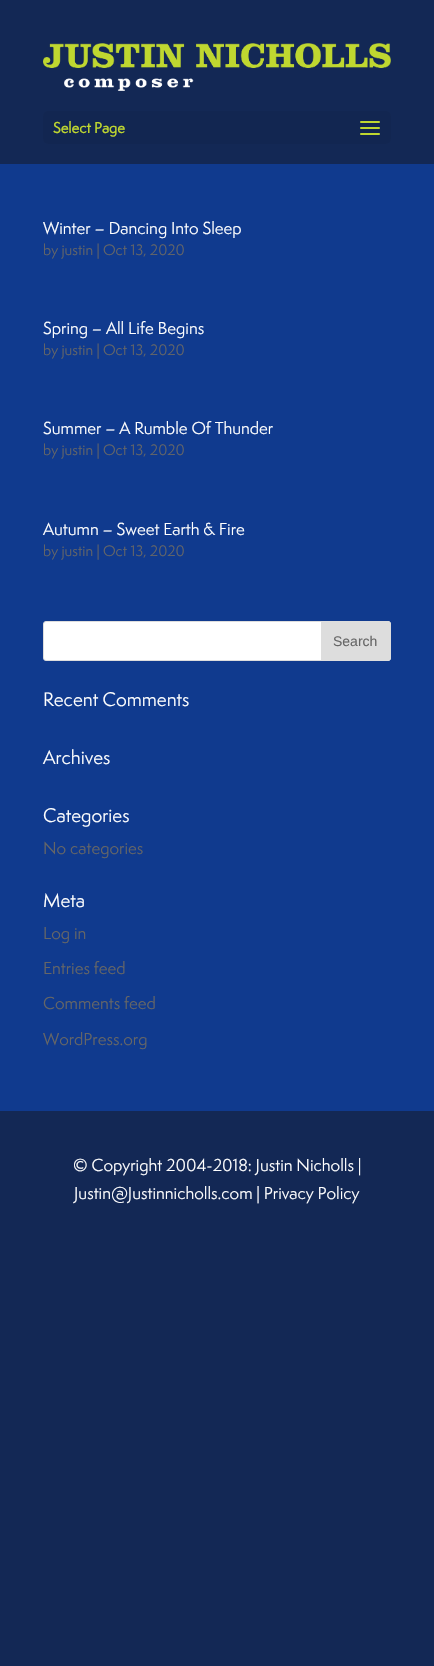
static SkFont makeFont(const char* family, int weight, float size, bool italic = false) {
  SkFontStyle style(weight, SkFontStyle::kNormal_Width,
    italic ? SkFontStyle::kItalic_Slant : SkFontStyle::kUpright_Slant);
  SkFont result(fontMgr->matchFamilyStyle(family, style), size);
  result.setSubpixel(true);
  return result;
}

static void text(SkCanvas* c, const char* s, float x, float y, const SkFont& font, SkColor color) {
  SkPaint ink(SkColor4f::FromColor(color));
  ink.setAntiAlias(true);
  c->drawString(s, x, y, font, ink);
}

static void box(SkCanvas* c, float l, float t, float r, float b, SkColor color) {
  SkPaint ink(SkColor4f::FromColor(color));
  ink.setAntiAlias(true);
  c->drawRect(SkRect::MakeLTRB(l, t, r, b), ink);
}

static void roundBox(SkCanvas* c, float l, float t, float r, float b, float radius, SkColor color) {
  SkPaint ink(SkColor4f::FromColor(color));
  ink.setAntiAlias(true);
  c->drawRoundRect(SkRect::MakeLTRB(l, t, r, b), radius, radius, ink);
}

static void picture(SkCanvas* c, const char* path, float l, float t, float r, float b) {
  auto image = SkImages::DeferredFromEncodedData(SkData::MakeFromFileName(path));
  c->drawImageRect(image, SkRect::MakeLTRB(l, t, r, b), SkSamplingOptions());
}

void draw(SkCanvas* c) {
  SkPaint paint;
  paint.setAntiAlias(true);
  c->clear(0xff132855);
  picture(c, "img_01.png", 43, 43, 391, 91);
  roundBox(c, 43, 111, 391, 144, 5, 0xff122651);
  SkFont face1 = makeFont("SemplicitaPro", 700, 14);
  text(c, "Select Page", 53, 133, face1, 0xffbfd730);
  picture(c, "img_02.png", 360, 121, 380, 135);
  box(c, 0, 164, 434, 1111, 0xff103a8e);
  SkFont face2 = makeFont("SemplicitaPro", 400, 16);
  text(c, "Winter – Dancing Into Sleep", 43, 234, face2, 0xffffffff);
  SkFont face3 = makeFont("SemplicitaPro", 400, 14);
  text(c, "by justin | Oct 13, 2020", 43, 255, face3, 0xff666666);
  text(c, "Spring – All Life Begins", 43, 334, face2, 0xffffffff);
  text(c, "by justin | Oct 13, 2020", 43, 355, face3, 0xff666666);
  text(c, "Summer – A Rumble Of Thunder", 43, 434, face2, 0xffffffff);
  text(c, "by justin | Oct 13, 2020", 43, 455, face3, 0xff666666);
  text(c, "Autumn – Sweet Earth & Fire", 43, 535, face2, 0xffffffff);
  text(c, "by justin | Oct 13, 2020", 43, 556, face3, 0xff666666);
  paint.setColor(0xffffffff);
  c->drawRoundRect(SkRect::MakeLTRB(43.5f, 621.5f, 390.5f, 660.5f), 2.5f, 2.5f, paint);
  paint.setStyle(SkPaint::kStroke_Style);
  paint.setStrokeWidth(1);
  paint.setColor(0xffdddddd);
  c->drawRoundRect(SkRect::MakeLTRB(43.5f, 621.5f, 390.5f, 660.5f), 2.5f, 2.5f, paint);
  paint.setStyle(SkPaint::kFill_Style);
  c->drawPath(SkPathBuilder().moveTo(321.5f, 621.5f).lineTo(388, 621.5f).cubicTo(389.5f, 621.5f, 390.5f, 622.5f, 390.5f, 624).lineTo(390.5f, 658).cubicTo(390.5f, 659.5f, 389.5f, 660.5f, 388, 660.5f).lineTo(321.5f, 660.5f).close().detach(), paint);
  paint.setStyle(SkPaint::kStroke_Style);
  c->drawPath(SkPathBuilder().moveTo(321.5f, 621.5f).lineTo(388, 621.5f).cubicTo(389.5f, 621.5f, 390.5f, 622.5f, 390.5f, 624).lineTo(390.5f, 658).cubicTo(390.5f, 659.5f, 389.5f, 660.5f, 388, 660.5f).lineTo(321.5f, 660.5f).close().detach(), paint);
  SkFont face4 = makeFont("Liberation Sans", 400, 14);
  text(c, "Search", 333, 646, face4, 0xff666666);
  SkFont face5 = makeFont("SemplicitaPro", 400, 18);
  text(c, "Recent Comments", 43, 706, face5, 0xffffffff);
  text(c, "Archives", 43, 764, face5, 0xffffffff);
  text(c, "Categories", 43, 822, face5, 0xffffffff);
  text(c, "No categories", 43, 854, face2, 0xff666666);
  text(c, "Meta", 43, 907, face5, 0xffffffff);
  text(c, "Log in", 43, 939, face2, 0xff666666);
  text(c, "Entries feed", 43, 974, face2, 0xff666666);
  text(c, "Comments feed", 43, 1009, face2, 0xff666666);
  text(c, "WordPress.org", 43, 1045, face2, 0xff666666);
  text(c, "© Copyright 2004-2018: Justin Nicholls |", 73, 1171, face2, 0xffffffff);
  text(c, "Justin@Justinnicholls.com | Privacy Policy", 74, 1199, face2, 0xffffffff);
}
